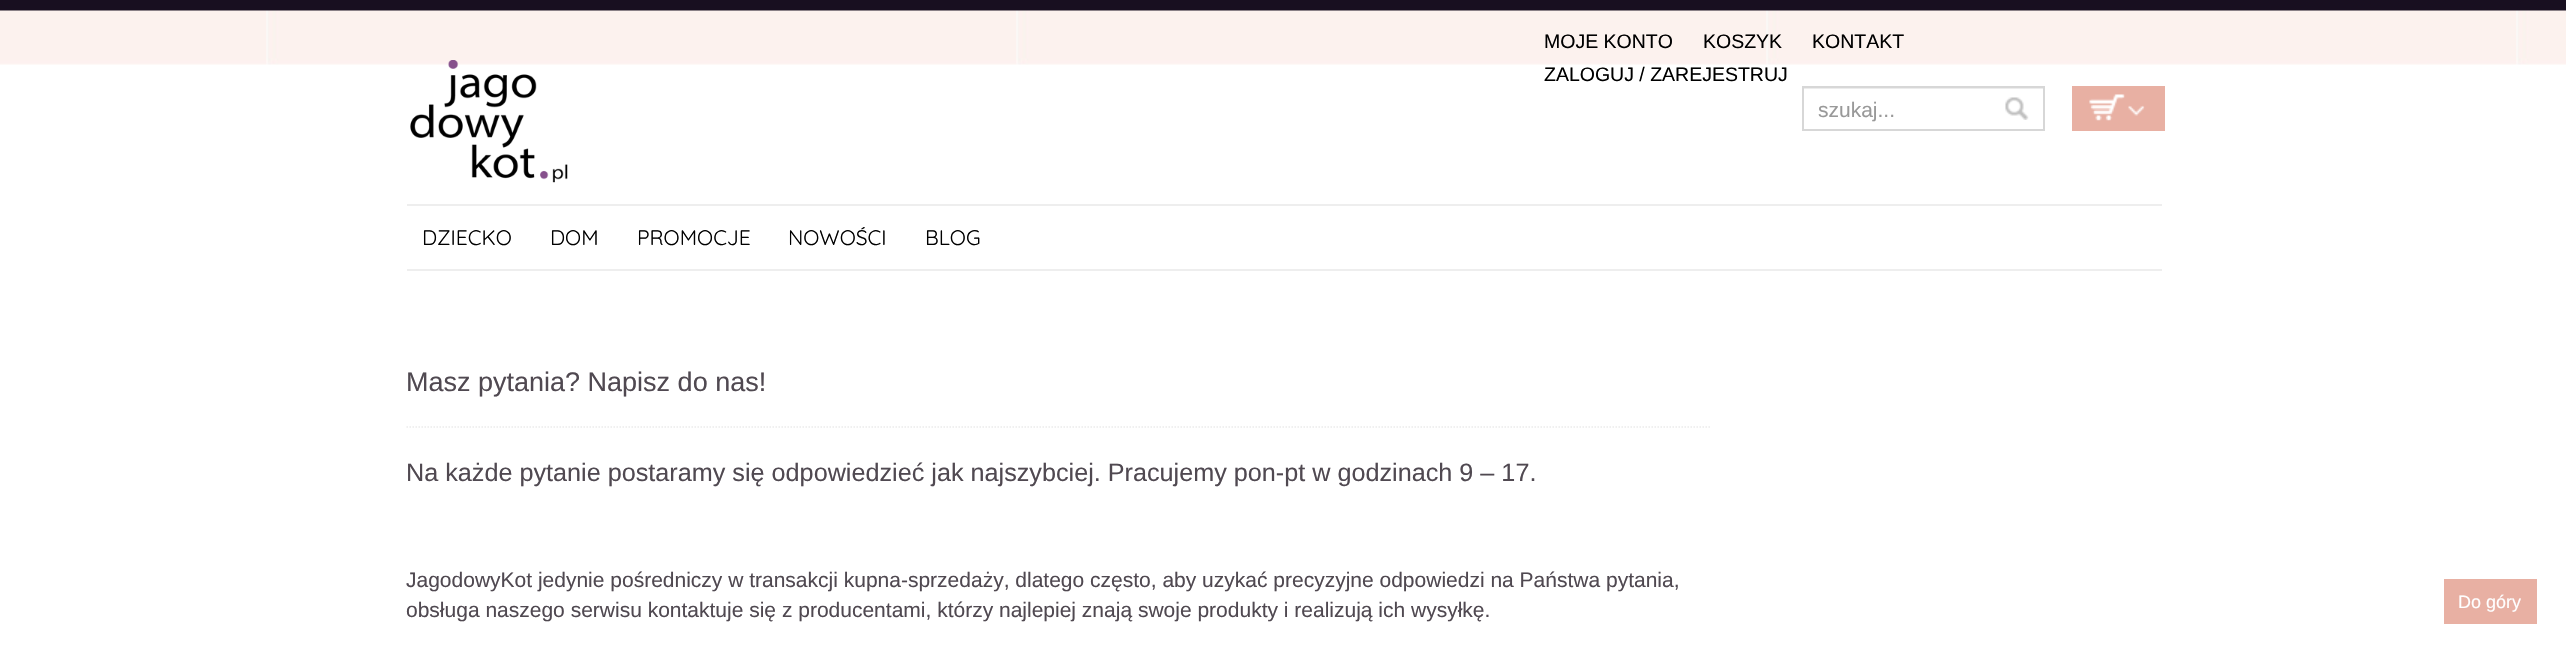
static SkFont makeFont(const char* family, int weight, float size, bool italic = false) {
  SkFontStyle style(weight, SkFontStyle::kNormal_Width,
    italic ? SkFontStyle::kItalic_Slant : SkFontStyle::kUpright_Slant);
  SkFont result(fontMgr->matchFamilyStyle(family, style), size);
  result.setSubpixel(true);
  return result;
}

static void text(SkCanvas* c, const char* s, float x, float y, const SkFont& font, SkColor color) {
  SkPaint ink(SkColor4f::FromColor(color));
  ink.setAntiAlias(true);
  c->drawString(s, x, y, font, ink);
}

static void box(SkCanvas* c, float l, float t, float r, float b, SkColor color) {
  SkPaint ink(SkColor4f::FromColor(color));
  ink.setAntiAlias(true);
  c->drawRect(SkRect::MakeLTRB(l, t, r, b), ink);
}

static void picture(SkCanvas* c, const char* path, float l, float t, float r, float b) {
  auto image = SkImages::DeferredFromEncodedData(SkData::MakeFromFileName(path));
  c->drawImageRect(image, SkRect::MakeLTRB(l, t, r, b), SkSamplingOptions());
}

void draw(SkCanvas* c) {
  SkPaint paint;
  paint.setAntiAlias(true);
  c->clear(0xffffffff);
  box(c, 0, 0, 2566, 11, 0xff180f20);
  picture(c, "img_01.png", 0, 10, 2566, 65);
  picture(c, "img_02.png", 410, 60, 568, 183);
  SkFont face1 = makeFont("Liberation Sans", 400, 19.5f);
  text(c, "MOJE KONTO", 1544, 48, face1, 0xff000000);
  text(c, "KOSZYK", 1703, 48, face1, 0xff000000);
  text(c, "KONTAKT", 1812, 48, face1, 0xff000000);
  text(c, "ZALOGUJ / ZAREJESTRUJ", 1544, 81, face1, 0xff000000);
  picture(c, "img_03.png", 2005, 97, 2029, 120);
  box(c, 1803, 88, 2043, 89, 0xffececec);
  paint.setStyle(SkPaint::kStroke_Style);
  paint.setStrokeWidth(2);
  paint.setColor(0xffd7d7d7);
  c->drawRect(SkRect::MakeLTRB(1803, 87, 2044, 130), paint);
  SkFont face2 = makeFont("Liberation Sans", 400, 21);
  text(c, "szukaj...", 1818, 117, face2, 0xff999999);
  box(c, 2072, 86, 2165, 131, 0xffe8b0a3);
  picture(c, "img_04.png", 2089, 94, 2145, 121);
  box(c, 407, 204, 2162, 206, 0xffeeeeee);
  box(c, 407, 269, 2162, 271, 0xffeeeeee);
  SkFont face3 = makeFont("Quicksand", 400, 21);
  text(c, "DZIECKO", 422, 245, face3, 0xff000000);
  text(c, "DOM", 550, 245, face3, 0xff000000);
  text(c, "PROMOCJE", 637, 245, face3, 0xff000000);
  text(c, "NOWOŚCI", 788, 245, face3, 0xff000000);
  text(c, "BLOG", 925, 245, face3, 0xff000000);
  SkFont face4 = makeFont("Liberation Sans", 400, 27);
  text(c, "Masz pytania? Napisz do nas!", 406, 391, face4, 0xff504951);
  paint.setStrokeWidth(1.5f);
  paint.setColor(0xffebebeb);
  paint.setPathEffect(SkDashPathEffect::Make({{1.5f, 1.5f}}, 0));
  c->drawPath(SkPathBuilder().moveTo(406.5f, 427).lineTo(1711.5f, 427).detach(), paint);
  paint.setPathEffect(nullptr);
  SkFont face5 = makeFont("Liberation Sans", 400, 25.2f);
  text(c, "Na każde pytanie postaramy się odpowiedzieć jak najszybciej. Pracujemy pon-pt w godzinach 9 – 17.", 406, 481, face5, 0xff504951);
  text(c, "JagodowyKot jedynie pośredniczy w transakcji kupna-sprzedaży, dlatego często, aby uzykać precyzyjne odpowiedzi na Państwa pytania,", 406, 587, face2, 0xff504951);
  text(c, "obsługa naszego serwisu kontaktuje się z producentami, którzy najlepiej znają swoje produkty i realizują ich wysyłkę.", 406, 617, face2, 0xff504951);
  box(c, 2444, 579, 2537, 624, 0xffe8b0a3);
  SkFont face6 = makeFont("Liberation Sans", 400, 18);
  text(c, "Do góry", 2458, 608, face6, 0xffffffff);
}
